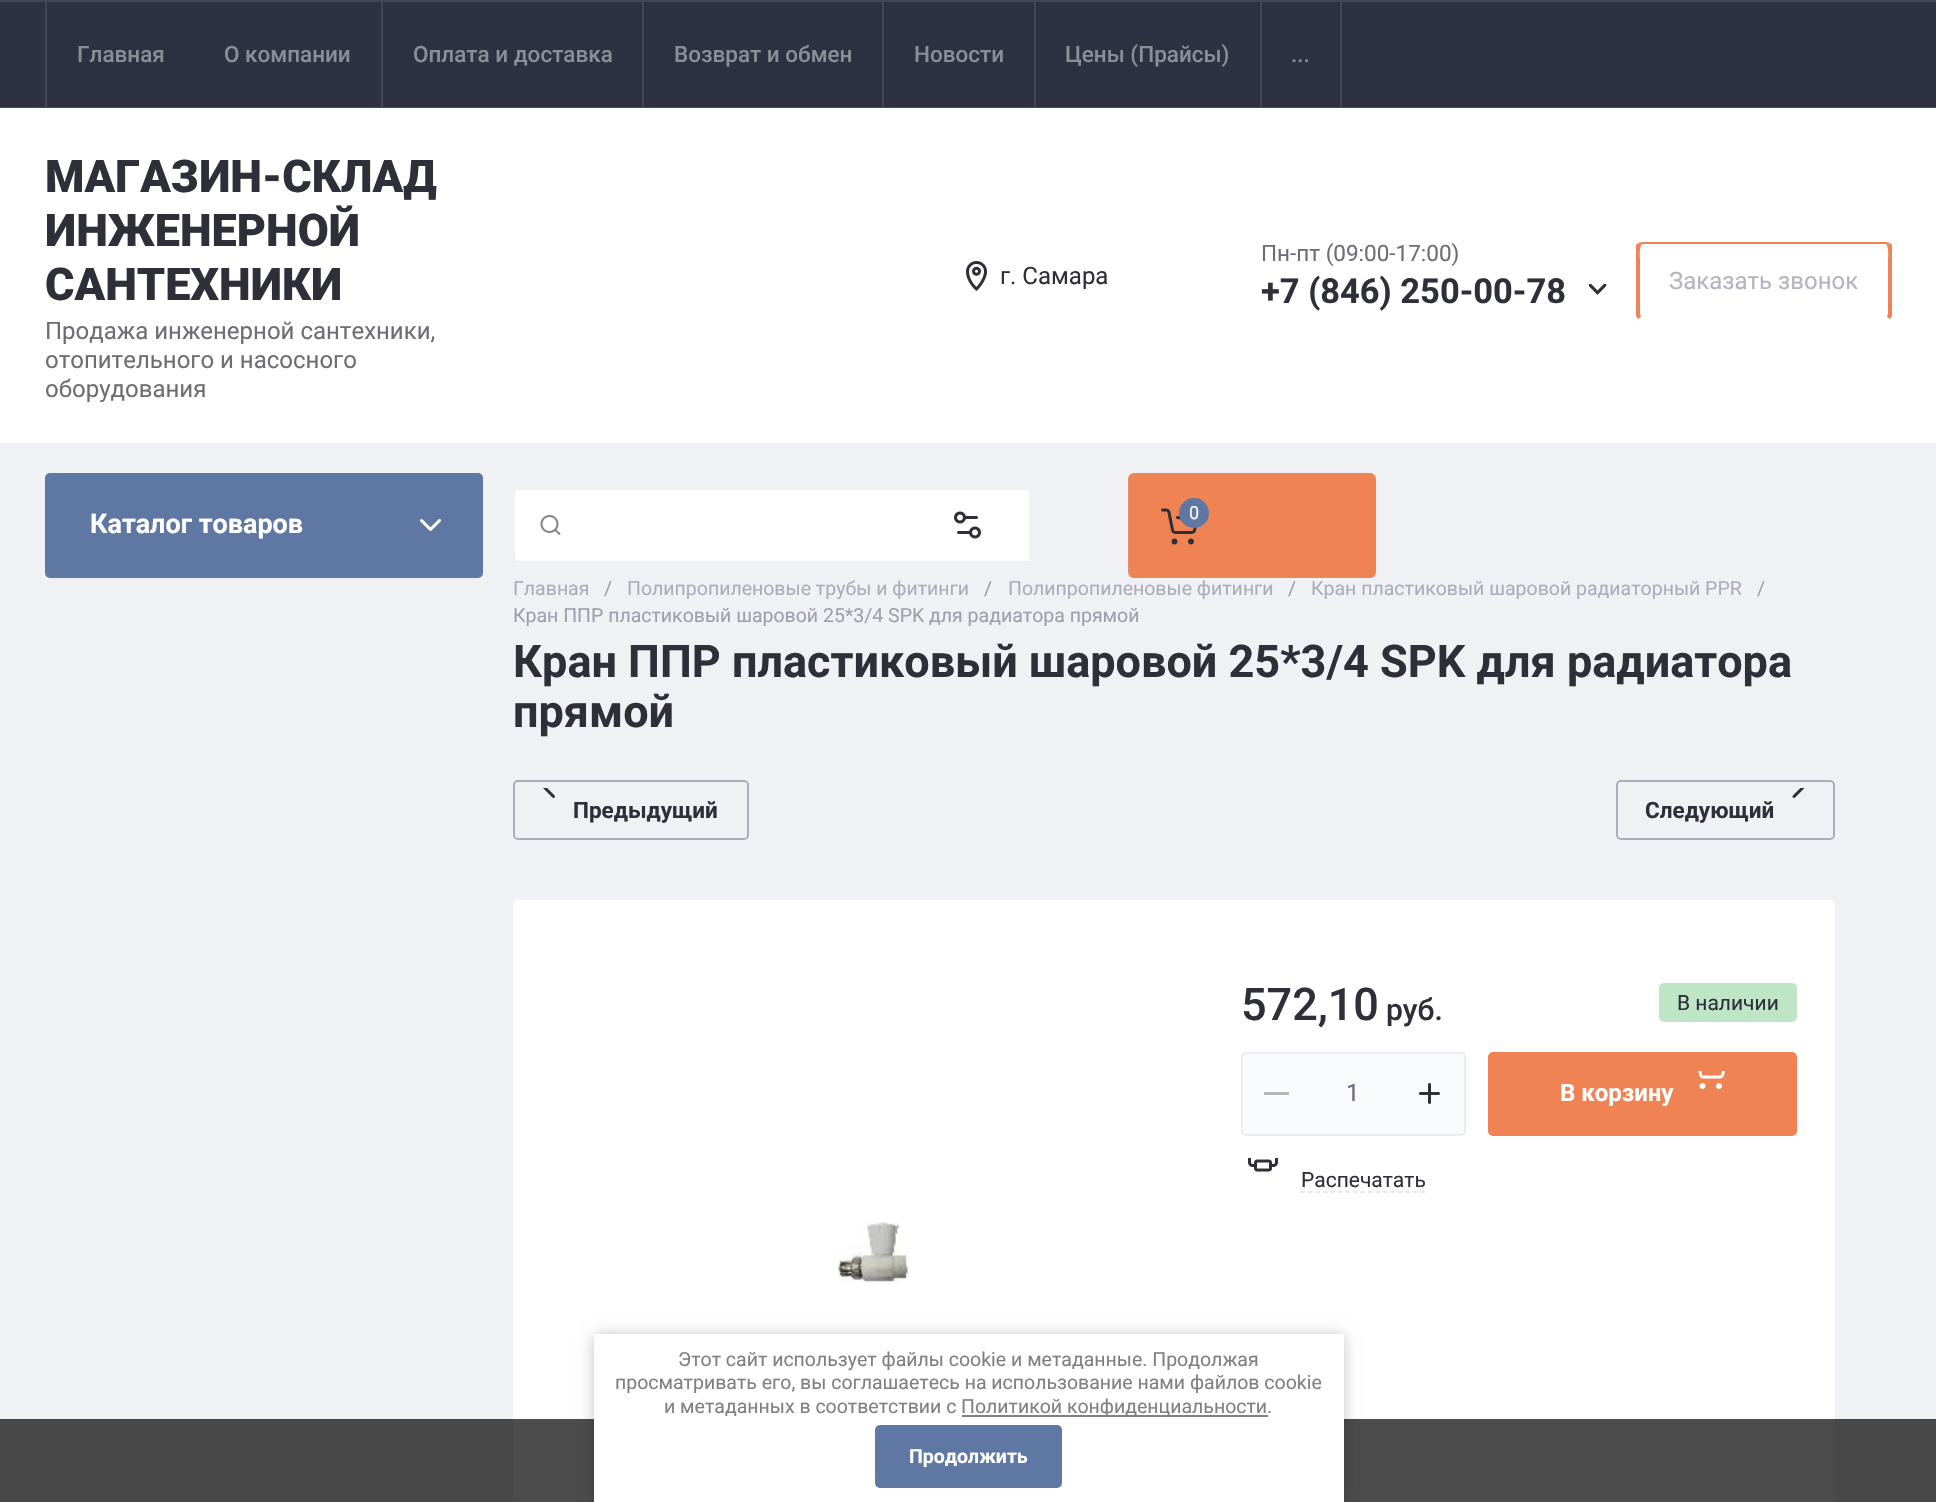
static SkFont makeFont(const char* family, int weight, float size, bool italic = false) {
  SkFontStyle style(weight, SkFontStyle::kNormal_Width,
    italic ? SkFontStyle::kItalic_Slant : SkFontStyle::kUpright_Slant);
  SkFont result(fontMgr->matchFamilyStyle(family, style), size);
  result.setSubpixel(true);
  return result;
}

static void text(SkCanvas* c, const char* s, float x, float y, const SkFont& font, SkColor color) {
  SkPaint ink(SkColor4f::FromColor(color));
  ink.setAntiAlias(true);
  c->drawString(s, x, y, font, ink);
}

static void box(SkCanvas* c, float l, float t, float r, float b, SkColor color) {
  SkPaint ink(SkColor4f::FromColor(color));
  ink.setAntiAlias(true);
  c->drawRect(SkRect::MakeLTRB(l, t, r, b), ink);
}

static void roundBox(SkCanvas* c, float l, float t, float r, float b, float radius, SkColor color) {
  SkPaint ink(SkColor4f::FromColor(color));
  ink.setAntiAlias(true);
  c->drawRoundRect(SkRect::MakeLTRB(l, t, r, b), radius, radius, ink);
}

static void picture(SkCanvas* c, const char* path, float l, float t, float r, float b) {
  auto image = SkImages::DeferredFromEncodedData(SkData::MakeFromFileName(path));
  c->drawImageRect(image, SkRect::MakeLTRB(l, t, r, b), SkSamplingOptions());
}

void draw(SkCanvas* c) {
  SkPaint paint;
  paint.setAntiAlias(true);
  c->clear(0xfff0f1f4);
  box(c, 0, 2, 1936, 107, 0xff2d3142);
  box(c, 0, 107, 1936, 108, 0xff424655);
  box(c, 0, 0, 1936, 2, 0xff424655);
  box(c, 45, 2, 47, 107, 0xff424655);
  SkFont face1 = makeFont("Roboto", 500, 22.5f);
  text(c, "Главная", 77, 62, face1, 0xff8c8e97);
  box(c, 381, 2, 383, 107, 0xff424655);
  text(c, "О компании", 224, 62, face1, 0xff8c8e97);
  box(c, 642, 2, 644, 107, 0xff424655);
  text(c, "Оплата и доставка", 413, 62, face1, 0xff8c8e97);
  box(c, 882, 2, 884, 107, 0xff424655);
  text(c, "Возврат и обмен", 674, 62, face1, 0xff8c8e97);
  box(c, 1034, 2, 1036, 107, 0xff424655);
  text(c, "Новости", 914, 62, face1, 0xff8c8e97);
  box(c, 1260, 2, 1262, 107, 0xff424655);
  text(c, "Цены (Прайсы)", 1065, 62, face1, 0xff8c8e97);
  box(c, 1340, 2, 1342, 107, 0xff424655);
  text(c, "...", 1291, 62, face1, 0xff8c8e97);
  box(c, 0, 108, 1936, 443, 0xffffffff);
  SkFont face2 = makeFont("Roboto", 900, 45);
  text(c, "МАГАЗИН-СКЛАД", 45, 192, face2, 0xff2e2f38);
  text(c, "ИНЖЕНЕРНОЙ", 45, 246, face2, 0xff2e2f38);
  text(c, "САНТЕХНИКИ", 45, 300, face2, 0xff2e2f38);
  SkFont face3 = makeFont("Roboto", 400, 24);
  text(c, "Продажа инженерной сантехники,", 45, 339, face3, 0xff6d6d74);
  text(c, "отопительного и насосного", 45, 368, face3, 0xff6d6d74);
  text(c, "оборудования", 45, 397, face3, 0xff6d6d74);
  picture(c, "img_01.png", 966, 261, 987, 291);
  text(c, "г. Самара", 1000, 284, face3, 0xff2e2f38);
  SkFont face4 = makeFont("Roboto", 400, 22.5f);
  text(c, "Пн-пт (09:00-17:00)", 1261, 261, face4, 0xff6d6d74);
  SkFont face5 = makeFont("Roboto", 700, 34.5f);
  text(c, "+7 (846) 250-00-78", 1261, 303, face5, 0xff2e2f38);
  picture(c, "img_02.png", 1589, 284, 1607, 295);
  paint.setColor(0xffef8354);
  c->drawPath(SkPathBuilder().moveTo(1642, 242).lineTo(1638, 243).lineTo(1641, 246).lineTo(1642, 244).lineTo(1845, 244).lineTo(1886, 244).lineTo(1887, 246).lineTo(1890, 243).lineTo(1886, 242).close().detach(), paint);
  c->drawPath(SkPathBuilder().moveTo(1890, 243).lineTo(1892, 245).lineTo(1892, 316).lineTo(1890, 319).lineTo(1887, 317).lineTo(1888, 314).lineTo(1888, 259).cubicTo(1888, 259, 1889, 249, 1887, 246).close().detach(), paint);
  c->drawPath(SkPathBuilder().moveTo(1636, 245).lineTo(1638, 243).lineTo(1641, 246).cubicTo(1639, 249, 1640, 259, 1640, 259).lineTo(1640, 314).lineTo(1641, 317).lineTo(1638, 319).lineTo(1636, 316).close().detach(), paint);
  text(c, "Заказать звонок", 1669, 289, face3, 0xffb3b4bf);
  roundBox(c, 45, 473, 483, 578, 5, 0xff5f78a3);
  SkFont face6 = makeFont("Roboto", 700, 27);
  text(c, "Каталог товаров", 90, 533, face6, 0xffffffff);
  picture(c, "img_03.png", 420, 519, 441, 531);
  paint.setColor(0xffffffff);
  c->drawPath(SkPathBuilder().moveTo(518, 488).lineTo(1031, 488).lineTo(1031, 563).lineTo(518, 563).cubicTo(515, 563, 513, 561, 513, 558).lineTo(513, 493).cubicTo(513, 490, 515, 488, 518, 488).close().detach(), paint);
  paint.setStyle(SkPaint::kStroke_Style);
  paint.setStrokeWidth(2);
  paint.setColor(0x33b1b2c7);
  c->drawPath(SkPathBuilder().moveTo(518, 489).lineTo(1030, 489).lineTo(1030, 562).lineTo(518, 562).cubicTo(516, 562, 514, 560, 514, 558).lineTo(514, 493).cubicTo(514, 491, 516, 489, 518, 489).close().detach(), paint);
  picture(c, "img_04.png", 540, 515, 561, 535);
  roundBox(c, 1128, 473, 1376, 578, 6, 0xffef8354);
  box(c, 1128, 476, 1130, 575, 0x33b1b2c7);
  picture(c, "img_05.png", 1161, 508, 1197, 545);
  paint.setStyle(SkPaint::kFill_Style);
  paint.setColor(0xff5f78a3);
  c->drawCircle(1194, 513, 15, paint);
  SkFont face7 = makeFont("Roboto", 400, 18);
  text(c, "0", 1189, 519, face7, 0xffffffff);
  picture(c, "img_06.png", 954, 511, 981, 539);
  SkFont face8 = makeFont("Roboto", 400, 19.5f);
  text(c, "Главная", 513, 595, face8, 0xffacadb9);
  text(c, "/", 604, 595, face8, 0xff9e9fad);
  text(c, "Полипропиленовые трубы и фитинги", 627, 595, face8, 0xffacadb9);
  text(c, "/", 984, 595, face8, 0xff9e9fad);
  text(c, "Полипропиленовые фитинги", 1008, 595, face8, 0xffacadb9);
  text(c, "/", 1288, 595, face8, 0xff9e9fad);
  text(c, "Кран пластиковый шаровой радиаторный PPR", 1311, 595, face8, 0xffacadb9);
  text(c, "/", 1757, 595, face8, 0xff9e9fad);
  text(c, "Кран ППР пластиковый шаровой 25*3/4 SPK для радиатора прямой", 513, 622, face8, 0xff9e9fad);
  SkFont face9 = makeFont("Roboto", 700, 45);
  text(c, "Кран ППР пластиковый шаровой 25*3/4 SPK для радиатора", 513, 677, face9, 0xff2e2f38);
  text(c, "прямой", 513, 727, face9, 0xff2e2f38);
  paint.setStyle(SkPaint::kStroke_Style);
  paint.setColor(0xffacadb9);
  c->drawRoundRect(SkRect::MakeLTRB(514, 781, 748, 839), 4, 4, paint);
  picture(c, "img_07.png", 543, 788, 555, 798);
  SkFont face10 = makeFont("Roboto", 700, 22.5f);
  text(c, "Предыдущий", 573, 818, face10, 0xff2e2f38);
  c->drawRoundRect(SkRect::MakeLTRB(1617, 781, 1834, 839), 4, 4, paint);
  picture(c, "img_08.png", 1792, 788, 1805, 798);
  text(c, "Следующий", 1645, 818, face10, 0xff2e2f38);
  roundBox(c, 513, 900, 1835, 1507, 5, 0xffffffff);
  SkFont face11 = makeFont("Roboto", 500, 45);
  text(c, "572,10", 1241, 1020, face11, 0xff2e2f38);
  SkFont face12 = makeFont("Roboto", 500, 30);
  text(c, "руб.", 1386, 1020, face12, 0xff2e2f38);
  roundBox(c, 1659, 983, 1797, 1022, 5, 0xffbde5c6);
  SkFont face13 = makeFont("Roboto", 400, 21);
  text(c, "В наличии", 1677, 1010, face13, 0xff2e2f38);
  paint.setStyle(SkPaint::kFill_Style);
  paint.setColor(0xfffafbfc);
  c->drawRoundRect(SkRect::MakeLTRB(1242, 1053, 1465, 1135), 4, 4, paint);
  paint.setStyle(SkPaint::kStroke_Style);
  paint.setColor(0xffebecf1);
  c->drawRoundRect(SkRect::MakeLTRB(1242, 1053, 1465, 1135), 4, 4, paint);
  box(c, 1264, 1092, 1289, 1095, 0xffb6b7ba);
  text(c, "1", 1346, 1101, face3, 0xff67697e);
  picture(c, "img_09.png", 1419, 1083, 1440, 1104);
  roundBox(c, 1488, 1052, 1797, 1136, 5, 0xffef8354);
  picture(c, "img_10.png", 1698, 1071, 1725, 1089);
  SkFont face14 = makeFont("Roboto", 700, 24);
  text(c, "В корзину", 1560, 1101, face14, 0xffffffff);
  picture(c, "img_11.png", 1248, 1158, 1278, 1172);
  text(c, "Распечатать", 1301, 1187, face13, 0xff2e2f38);
  paint.setStrokeWidth(1.5f);
  paint.setColor(0xffe0e0e9);
  paint.setPathEffect(SkDashPathEffect::Make({{4.5f, 3}}, 0));
  c->drawPath(SkPathBuilder().moveTo(1300.5f, 1192).lineTo(1425, 1192).detach(), paint);
  paint.setPathEffect(nullptr);
  picture(c, "img_12.png", 838, 1222, 909, 1283);
  box(c, 0, 1419, 1936, 1502, 0xb3000000);
  paint.setStyle(SkPaint::kFill_Style);
  paint.setColor(0x3b000000);
  paint.setMaskFilter(SkMaskFilter::MakeBlur(kNormal_SkBlurStyle, 7.5f));
  c->drawRect(SkRect::MakeLTRB(594, 1335, 1344, 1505), paint);
  paint.setMaskFilter(nullptr);
  box(c, 594, 1334, 1344, 1502, 0xffffffff);
  text(c, "Этот сайт использует файлы cookie и метаданные. Продолжая", 678, 1366, face8, 0xff808080);
  text(c, "просматривать его, вы соглашаетесь на использование нами файлов cookie", 615, 1389, face8, 0xff808080);
  text(c, "и метаданных в соответствии с", 664, 1413, face8, 0xff808080);
  box(c, 962, 1415, 1268, 1417, 0xff808080);
  text(c, "Политикой конфиденциальности.", 961, 1413, face8, 0xff808080);
  roundBox(c, 875, 1425, 1062, 1488, 5, 0xff5f78a3);
  SkFont face15 = makeFont("Roboto", 700, 19.5f);
  text(c, "Продолжить", 909, 1463, face15, 0xffffffff);
}
